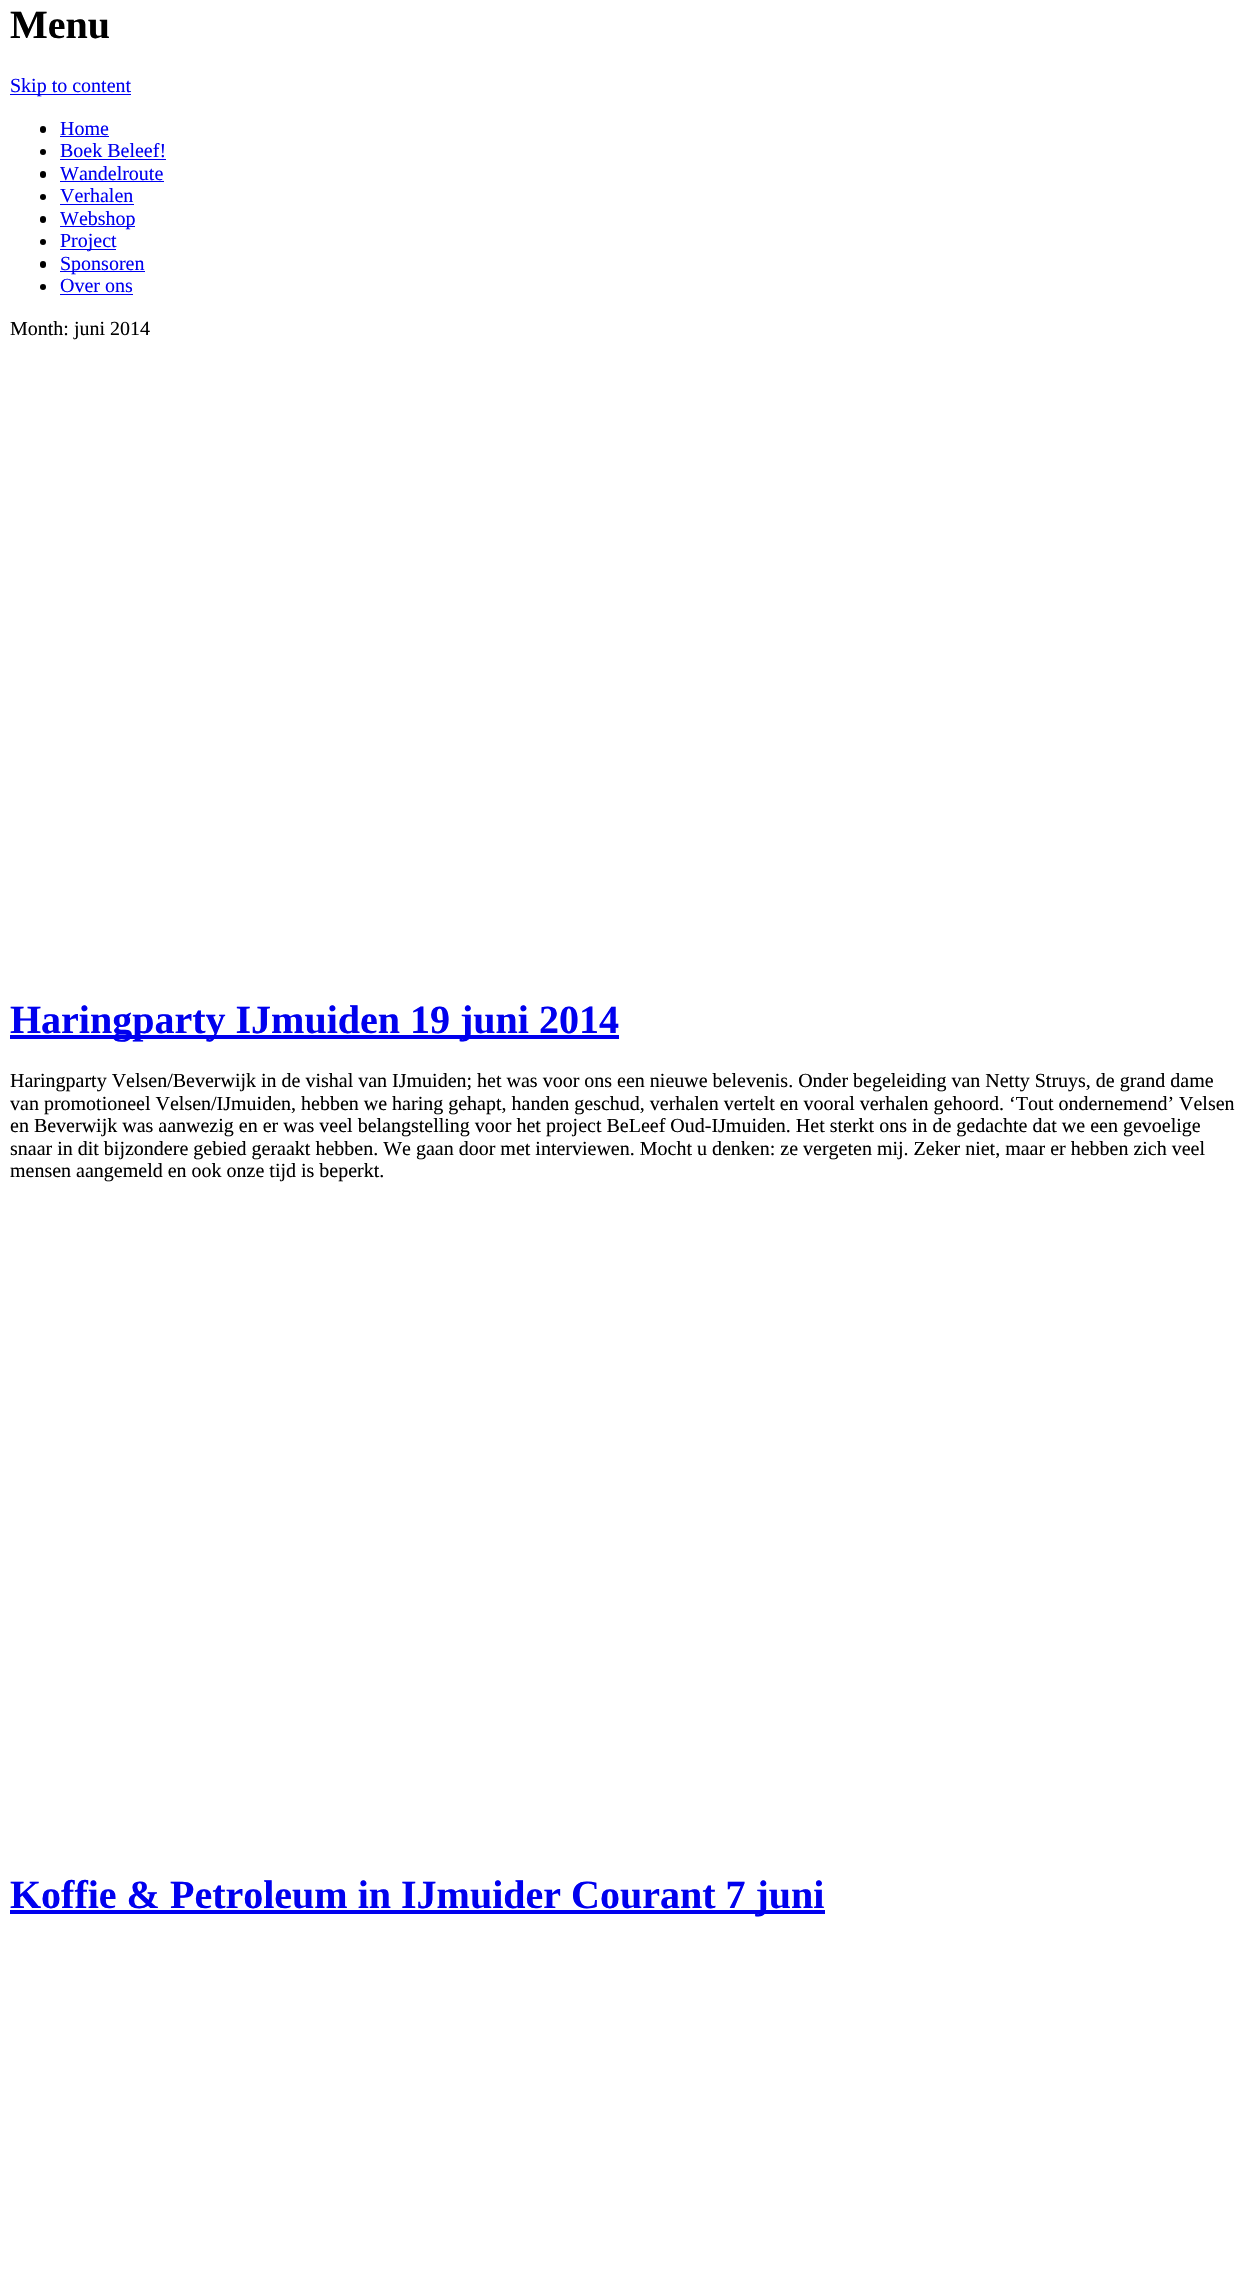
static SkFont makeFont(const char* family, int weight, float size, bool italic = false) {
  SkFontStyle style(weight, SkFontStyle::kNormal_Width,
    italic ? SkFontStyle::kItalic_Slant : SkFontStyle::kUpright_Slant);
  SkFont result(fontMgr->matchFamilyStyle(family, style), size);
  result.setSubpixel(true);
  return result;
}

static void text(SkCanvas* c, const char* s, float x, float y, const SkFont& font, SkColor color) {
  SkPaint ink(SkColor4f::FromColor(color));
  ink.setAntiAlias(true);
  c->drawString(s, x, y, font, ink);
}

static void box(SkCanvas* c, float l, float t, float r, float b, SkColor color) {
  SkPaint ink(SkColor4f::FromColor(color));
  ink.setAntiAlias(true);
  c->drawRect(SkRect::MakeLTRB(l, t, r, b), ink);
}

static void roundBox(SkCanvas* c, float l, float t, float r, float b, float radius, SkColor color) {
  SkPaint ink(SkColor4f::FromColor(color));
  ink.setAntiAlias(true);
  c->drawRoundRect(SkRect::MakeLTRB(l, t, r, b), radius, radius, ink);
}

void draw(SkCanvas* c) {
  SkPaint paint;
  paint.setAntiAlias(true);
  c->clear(0xffffffff);
  SkFont face1 = makeFont("Liberation Serif", 700, 40);
  text(c, "Menu", 10, 38, face1, 0xff000000);
  box(c, 10, 94, 131, 95, 0xff0000ee);
  SkFont face2 = makeFont("Liberation Serif", 400, 20);
  text(c, "Skip to content", 10, 92, face2, 0xff0000ee);
  roundBox(c, 40, 126, 46, 133, 3, 0xff000000);
  text(c, "Home", 60, 135, face2, 0xff0000ee);
  box(c, 60, 136, 109, 137, 0xff0000ee);
  paint.setColor(0xff000000);
  c->drawCircle(43, 152, 3, paint);
  text(c, "Boek Beleef!", 60, 157, face2, 0xff0000ee);
  box(c, 60, 159, 166, 160, 0xff0000ee);
  roundBox(c, 40, 171, 46, 178, 3, 0xff000000);
  text(c, "Wandelroute", 60, 180, face2, 0xff0000ee);
  box(c, 60, 181, 164, 182, 0xff0000ee);
  c->drawCircle(43, 197, 3, paint);
  text(c, "Verhalen", 60, 202, face2, 0xff0000ee);
  box(c, 60, 204, 134, 205, 0xff0000ee);
  roundBox(c, 40, 216, 46, 223, 3, 0xff000000);
  box(c, 60, 226, 135, 227, 0xff0000ee);
  text(c, "Webshop", 60, 225, face2, 0xff0000ee);
  c->drawCircle(43, 242, 3, paint);
  box(c, 60, 249, 116, 250, 0xff0000ee);
  text(c, "Project", 60, 247, face2, 0xff0000ee);
  roundBox(c, 40, 261, 46, 268, 3, 0xff000000);
  box(c, 60, 271, 145, 272, 0xff0000ee);
  text(c, "Sponsoren", 60, 270, face2, 0xff0000ee);
  c->drawCircle(43, 287, 3, paint);
  text(c, "Over ons", 60, 292, face2, 0xff0000ee);
  box(c, 60, 294, 133, 295, 0xff0000ee);
  text(c, "Month: juni 2014", 10, 335, face2, 0xff000000);
  box(c, 10, 1035, 619, 1039, 0xff0000ee);
  text(c, "Haringparty IJmuiden 19 juni 2014", 10, 1033, face1, 0xff0000ee);
  text(c, "Haringparty Velsen/Beverwijk in de vishal van IJmuiden; het was voor ons een nieuwe belevenis. Onder begeleiding van Netty Struys, de grand dame", 10, 1087, face2, 0xff000000);
  text(c, "van promotioneel Velsen/IJmuiden, hebben we haring gehapt, handen geschud, verhalen vertelt en vooral verhalen gehoord. ‘Tout ondernemend’ Velsen", 10, 1110, face2, 0xff000000);
  text(c, "en Beverwijk was aanwezig en er was veel belangstelling voor het project BeLeef Oud-IJmuiden. Het sterkt ons in de gedachte dat we een gevoelige", 10, 1132, face2, 0xff000000);
  text(c, "snaar in dit bijzondere gebied geraakt hebben. We gaan door met interviewen. Mocht u denken: ze vergeten mij. Zeker niet, maar er hebben zich veel", 10, 1155, face2, 0xff000000);
  text(c, "mensen aangemeld en ook onze tijd is beperkt.", 10, 1177, face2, 0xff000000);
  box(c, 10, 1910, 825, 1914, 0xff0000ee);
  text(c, "Koffie & Petroleum in IJmuider Courant 7 juni", 10, 1908, face1, 0xff0000ee);
}
